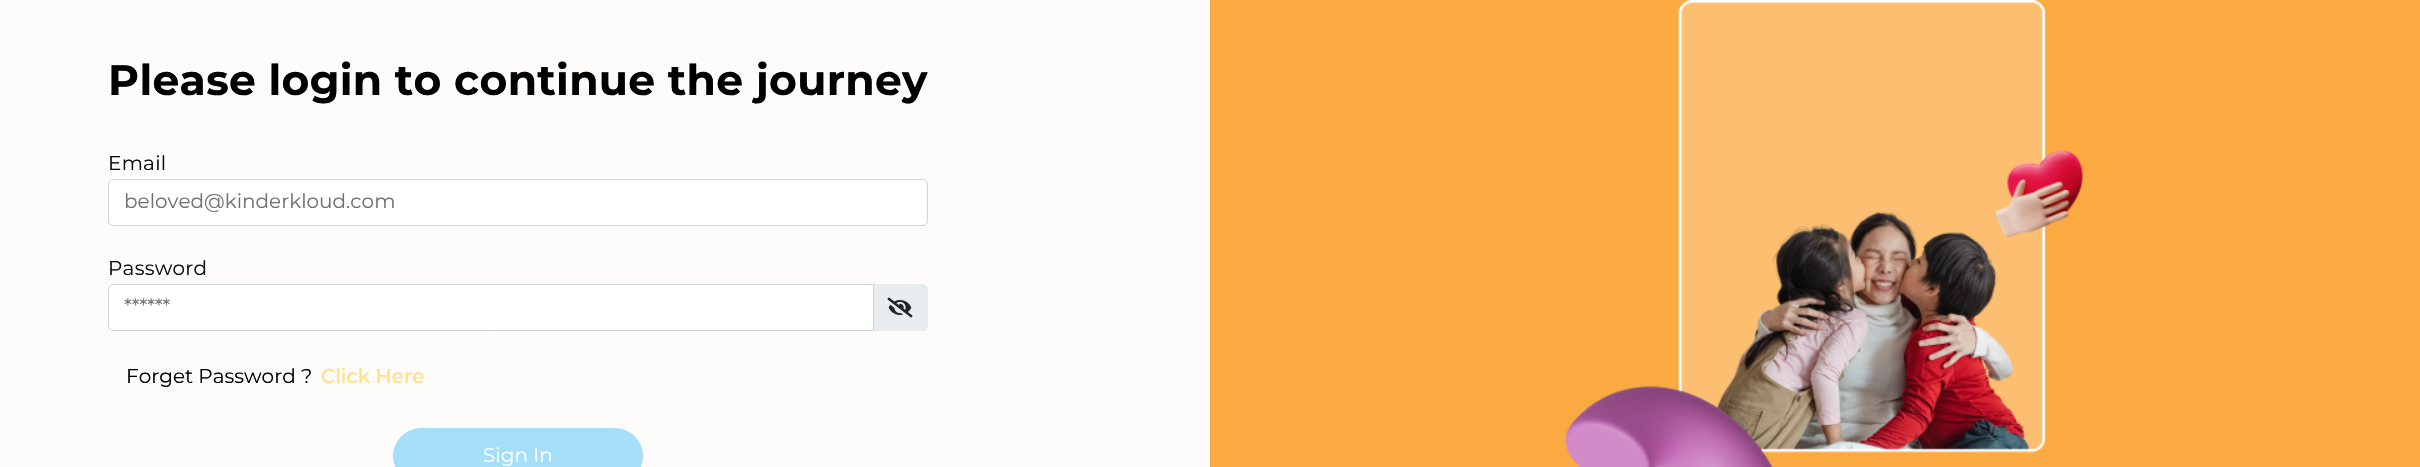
static SkFont makeFont(const char* family, int weight, float size, bool italic = false) {
  SkFontStyle style(weight, SkFontStyle::kNormal_Width,
    italic ? SkFontStyle::kItalic_Slant : SkFontStyle::kUpright_Slant);
  SkFont result(fontMgr->matchFamilyStyle(family, style), size);
  result.setSubpixel(true);
  return result;
}

static void text(SkCanvas* c, const char* s, float x, float y, const SkFont& font, SkColor color) {
  SkPaint ink(SkColor4f::FromColor(color));
  ink.setAntiAlias(true);
  c->drawString(s, x, y, font, ink);
}

static void spacedText(SkCanvas* c, const char* s, float x, float y, const SkFont& font, const SkPaint& ink, float letter, float word) {
  std::vector<SkGlyphID> glyphs(font.countText(s, strlen(s), SkTextEncoding::kUTF8));
  std::vector<float> xs(glyphs.size());
  font.textToGlyphs(s, strlen(s), SkTextEncoding::kUTF8, glyphs);
  font.getXPos(glyphs, xs, x);
  float extra = 0;
  for (size_t i = 0; i < glyphs.size(); i++) {
    xs[i] += extra;
    extra += letter + word * (glyphs[i] == font.unicharToGlyph(' '));
  }
  c->drawTextBlob(SkTextBlob::MakeFromPosHGlyphs(glyphs, xs, y, font), 0, 0, ink);
}

static void box(SkCanvas* c, float l, float t, float r, float b, SkColor color) {
  SkPaint ink(SkColor4f::FromColor(color));
  ink.setAntiAlias(true);
  c->drawRect(SkRect::MakeLTRB(l, t, r, b), ink);
}

static void roundBox(SkCanvas* c, float l, float t, float r, float b, float radius, SkColor color) {
  SkPaint ink(SkColor4f::FromColor(color));
  ink.setAntiAlias(true);
  c->drawRoundRect(SkRect::MakeLTRB(l, t, r, b), radius, radius, ink);
}

static void picture(SkCanvas* c, const char* path, float l, float t, float r, float b) {
  auto image = SkImages::DeferredFromEncodedData(SkData::MakeFromFileName(path));
  c->drawImageRect(image, SkRect::MakeLTRB(l, t, r, b), SkSamplingOptions());
}

void draw(SkCanvas* c) {
  SkPaint paint;
  paint.setAntiAlias(true);
  c->clear(0xfffdfcfa);
  SkFont face1 = makeFont("Montserrat", 700, 42.5f);
  paint.setColor(0xff000000);
  spacedText(c, "Please login to continue the journey", 108, 95, face1, paint, 0.3f, 0);
  SkFont face2 = makeFont("Montserrat", 400, 20);
  paint.setColor(0xff0a0a0a);
  spacedText(c, "Email", 108, 170, face2, paint, 0.25f, 0);
  roundBox(c, 109, 180, 926, 225, 4, 0xffffffff);
  paint.setStyle(SkPaint::kStroke_Style);
  paint.setStrokeWidth(1);
  paint.setColor(0xffced4da);
  c->drawRoundRect(SkRect::MakeLTRB(108.5f, 179.5f, 927.5f, 225.5f), 4.5f, 4.5f, paint);
  text(c, "beloved@kinderkloud.com", 124, 208, face2, 0xff707070);
  paint.setStyle(SkPaint::kFill_Style);
  paint.setColor(0xff0a0a0a);
  spacedText(c, "Password", 108, 275, face2, paint, 0.25f, 0);
  paint.setColor(0xffe9ecef);
  c->drawPath(SkPathBuilder().moveTo(873, 284).lineTo(923, 284).cubicTo(926, 284, 928, 286, 928, 289).lineTo(928, 326).cubicTo(928, 329, 926, 331, 923, 331).lineTo(873, 331).close().detach(), paint);
  paint.setColor(0xffffffff);
  c->drawPath(SkPathBuilder().moveTo(113, 284.5f).lineTo(873.5f, 284.5f).lineTo(873.5f, 330.5f).lineTo(113, 330.5f).cubicTo(110.5f, 330.5f, 108.5f, 328.5f, 108.5f, 326).lineTo(108.5f, 289).cubicTo(108.5f, 286.5f, 110.5f, 284.5f, 113, 284.5f).close().detach(), paint);
  paint.setStyle(SkPaint::kStroke_Style);
  paint.setColor(0xffced4da);
  c->drawPath(SkPathBuilder().moveTo(113, 284.5f).lineTo(873.5f, 284.5f).lineTo(873.5f, 330.5f).lineTo(113, 330.5f).cubicTo(110.5f, 330.5f, 108.5f, 328.5f, 108.5f, 326).lineTo(108.5f, 289).cubicTo(108.5f, 286.5f, 110.5f, 284.5f, 113, 284.5f).close().detach(), paint);
  text(c, "******", 124, 313, face2, 0xff707070);
  picture(c, "img_01.png", 887, 297, 913, 318);
  text(c, "Forget Password ?", 126, 383, face2, 0xff000000);
  SkFont face3 = makeFont("Montserrat", 500, 20);
  text(c, "Click Here", 321, 383, face3, 0xffffe082);
  roundBox(c, 393, 428, 643, 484, 28, 0xffa5def9);
  text(c, "Sign In", 483, 462, face2, 0xffffffff);
  box(c, 1210, 0, 2420, 467, 0xfffba941);
  picture(c, "img_02.png", 1565, 0, 2084, 467);
}
